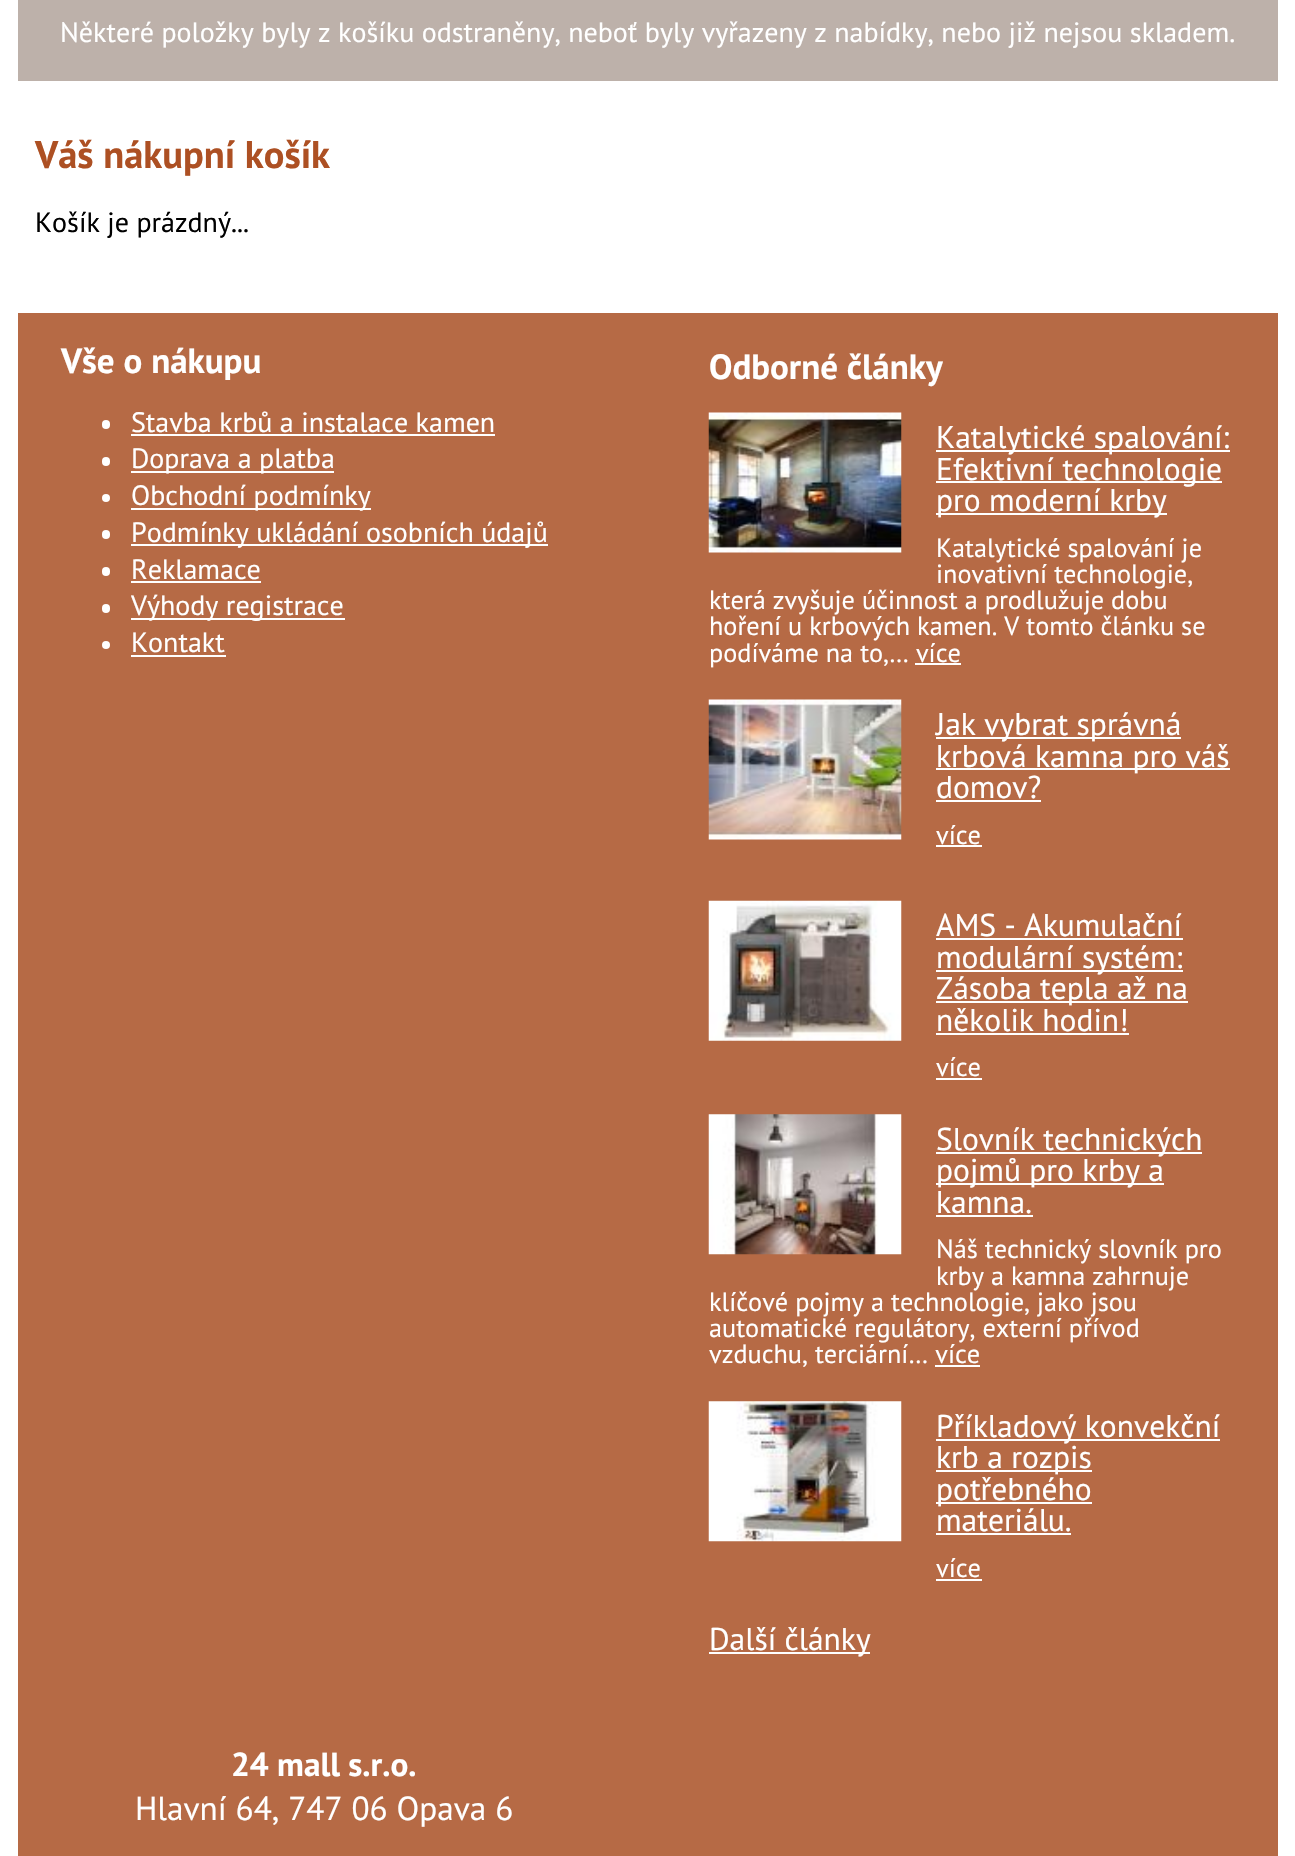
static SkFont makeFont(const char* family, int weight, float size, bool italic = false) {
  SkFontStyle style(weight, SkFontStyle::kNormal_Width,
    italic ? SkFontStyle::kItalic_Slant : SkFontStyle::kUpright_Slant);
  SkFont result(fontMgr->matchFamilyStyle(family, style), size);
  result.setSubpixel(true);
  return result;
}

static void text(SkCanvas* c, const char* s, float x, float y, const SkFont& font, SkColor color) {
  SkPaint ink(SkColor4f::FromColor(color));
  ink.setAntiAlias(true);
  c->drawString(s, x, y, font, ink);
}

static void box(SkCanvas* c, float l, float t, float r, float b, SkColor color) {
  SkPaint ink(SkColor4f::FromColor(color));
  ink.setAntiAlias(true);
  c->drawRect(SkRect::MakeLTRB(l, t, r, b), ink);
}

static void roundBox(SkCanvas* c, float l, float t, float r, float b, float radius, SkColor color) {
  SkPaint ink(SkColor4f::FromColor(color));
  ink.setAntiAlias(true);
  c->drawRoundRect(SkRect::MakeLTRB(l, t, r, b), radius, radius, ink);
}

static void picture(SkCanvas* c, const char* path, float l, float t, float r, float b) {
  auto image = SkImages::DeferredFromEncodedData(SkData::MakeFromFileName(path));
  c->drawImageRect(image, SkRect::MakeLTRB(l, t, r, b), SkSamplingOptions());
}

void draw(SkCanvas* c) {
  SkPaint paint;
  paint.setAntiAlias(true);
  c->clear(0xffffffff);
  box(c, 18, 0, 1278, 81, 0xffbdb1aa);
  SkFont face1 = makeFont("PT Sans", 400, 28);
  text(c, "Některé položky byly z košíku odstraněny, neboť byly vyřazeny z nabídky, nebo již nejsou skladem.", 60, 42, face1, 0xffffffff);
  SkFont face2 = makeFont("PT Sans", 700, 38.5f);
  text(c, "Váš nákupní košík", 35, 168, face2, 0xffad5023);
  text(c, "Košík je prázdný...", 35, 232, face1, 0xff000000);
  box(c, 18, 313, 1278, 1856, 0xffb66a45);
  SkFont face3 = makeFont("PT Sans", 700, 35);
  text(c, "Vše o nákupu", 61, 373, face3, 0xffffffff);
  roundBox(c, 102, 420, 110, 429, 4, 0xffffffff);
  text(c, "Stavba krbů a instalace kamen", 131, 432, face1, 0xffffffff);
  box(c, 131, 434, 495, 436, 0xffffffff);
  roundBox(c, 102, 457, 110, 466, 4, 0xffffffff);
  box(c, 131, 471, 334, 473, 0xffffffff);
  text(c, "Doprava a platba", 131, 468, face1, 0xffffffff);
  paint.setColor(0xffffffff);
  c->drawCircle(106, 498, 4, paint);
  box(c, 131, 508, 371, 510, 0xffffffff);
  text(c, "Obchodní podmínky", 131, 505, face1, 0xffffffff);
  roundBox(c, 102, 530, 110, 539, 4, 0xffffffff);
  box(c, 131, 544, 548, 546, 0xffffffff);
  text(c, "Podmínky ukládání osobních údajů", 131, 542, face1, 0xffffffff);
  roundBox(c, 102, 567, 110, 576, 4, 0xffffffff);
  text(c, "Reklamace", 131, 579, face1, 0xffffffff);
  box(c, 131, 581, 261, 583, 0xffffffff);
  roundBox(c, 102, 604, 110, 613, 4, 0xffffffff);
  box(c, 131, 618, 345, 620, 0xffffffff);
  text(c, "Výhody registrace", 131, 615, face1, 0xffffffff);
  c->drawCircle(106, 645, 4, paint);
  text(c, "Kontakt", 131, 652, face1, 0xffffffff);
  box(c, 131, 655, 226, 657, 0xffffffff);
  text(c, "Odborné články", 709, 379, face3, 0xffffffff);
  picture(c, "img_01.png", 708, 412, 902, 553);
  box(c, 936, 450, 1230, 452, 0xffffffff);
  SkFont face4 = makeFont("PT Sans", 400, 31.5f);
  text(c, "Katalytické spalování:", 936, 448, face4, 0xffffffff);
  box(c, 936, 481, 1222, 483, 0xffffffff);
  text(c, "Efektivní technologie", 936, 480, face4, 0xffffffff);
  box(c, 936, 513, 1167, 515, 0xffffffff);
  text(c, "pro moderní krby", 936, 511, face4, 0xffffffff);
  SkFont face5 = makeFont("PT Sans", 400, 26.25f);
  text(c, "Katalytické spalování je", 936, 557, face5, 0xffffffff);
  text(c, "inovativní technologie,", 936, 583, face5, 0xffffffff);
  text(c, "která zvyšuje účinnost a prodlužuje dobu", 709, 609, face5, 0xffffffff);
  text(c, "hoření u krbových kamen. V tomto článku se", 709, 635, face5, 0xffffffff);
  text(c, "podíváme na to,… více", 709, 662, face5, 0xffffffff);
  box(c, 915, 663, 961, 665, 0xffffffff);
  picture(c, "img_02.png", 708, 699, 902, 840);
  box(c, 936, 737, 1181, 739, 0xffffffff);
  text(c, "Jak vybrat správná", 936, 735, face4, 0xffffffff);
  box(c, 936, 768, 1230, 770, 0xffffffff);
  text(c, "krbová kamna pro váš", 936, 767, face4, 0xffffffff);
  text(c, "domov?", 936, 798, face4, 0xffffffff);
  box(c, 936, 800, 1041, 802, 0xffffffff);
  text(c, "více", 936, 844, face5, 0xffffffff);
  box(c, 936, 845, 982, 847, 0xffffffff);
  picture(c, "img_03.png", 708, 900, 902, 1041);
  text(c, "AMS - Akumulační", 936, 936, face4, 0xffffffff);
  box(c, 936, 938, 1183, 940, 0xffffffff);
  box(c, 936, 970, 1183, 972, 0xffffffff);
  text(c, "modulární systém:", 936, 968, face4, 0xffffffff);
  box(c, 936, 1001, 1188, 1003, 0xffffffff);
  text(c, "Zásoba tepla až na", 936, 999, face4, 0xffffffff);
  text(c, "několik hodin!", 936, 1031, face4, 0xffffffff);
  box(c, 936, 1033, 1129, 1035, 0xffffffff);
  text(c, "více", 936, 1076, face5, 0xffffffff);
  box(c, 936, 1078, 982, 1080, 0xffffffff);
  picture(c, "img_04.png", 708, 1114, 902, 1255);
  box(c, 936, 1152, 1202, 1154, 0xffffffff);
  text(c, "Slovník technických", 936, 1150, face4, 0xffffffff);
  box(c, 936, 1183, 1164, 1185, 0xffffffff);
  text(c, "pojmů pro krby a", 936, 1181, face4, 0xffffffff);
  text(c, "kamna.", 936, 1213, face4, 0xffffffff);
  box(c, 936, 1215, 1033, 1217, 0xffffffff);
  text(c, "Náš technický slovník pro", 936, 1258, face5, 0xffffffff);
  text(c, "krby a kamna zahrnuje", 936, 1285, face5, 0xffffffff);
  text(c, "klíčové pojmy a technologie, jako jsou", 709, 1311, face5, 0xffffffff);
  text(c, "automatické regulátory, externí přívod", 709, 1337, face5, 0xffffffff);
  text(c, "vzduchu, terciární… více", 709, 1363, face5, 0xffffffff);
  box(c, 935, 1365, 980, 1367, 0xffffffff);
  picture(c, "img_05.png", 708, 1401, 902, 1542);
  box(c, 936, 1439, 1220, 1441, 0xffffffff);
  text(c, "Příkladový konvekční", 936, 1437, face4, 0xffffffff);
  box(c, 936, 1470, 1092, 1472, 0xffffffff);
  text(c, "krb a rozpis", 936, 1468, face4, 0xffffffff);
  box(c, 936, 1502, 1092, 1504, 0xffffffff);
  text(c, "potřebného", 936, 1500, face4, 0xffffffff);
  text(c, "materiálu.", 936, 1531, face4, 0xffffffff);
  box(c, 936, 1533, 1071, 1535, 0xffffffff);
  text(c, "více", 936, 1577, face5, 0xffffffff);
  box(c, 936, 1579, 982, 1581, 0xffffffff);
  box(c, 709, 1652, 870, 1654, 0xffffffff);
  text(c, "Další články", 709, 1650, face4, 0xffffffff);
  SkFont face6 = makeFont("PT Sans", 700, 33.25f);
  text(c, "24 mall s.r.o.", 231, 1776, face6, 0xffffffff);
  SkFont face7 = makeFont("PT Sans", 400, 33.25f);
  text(c, "Hlavní 64, 747 06 Opava 6", 135, 1820, face7, 0xffffffff);
}
